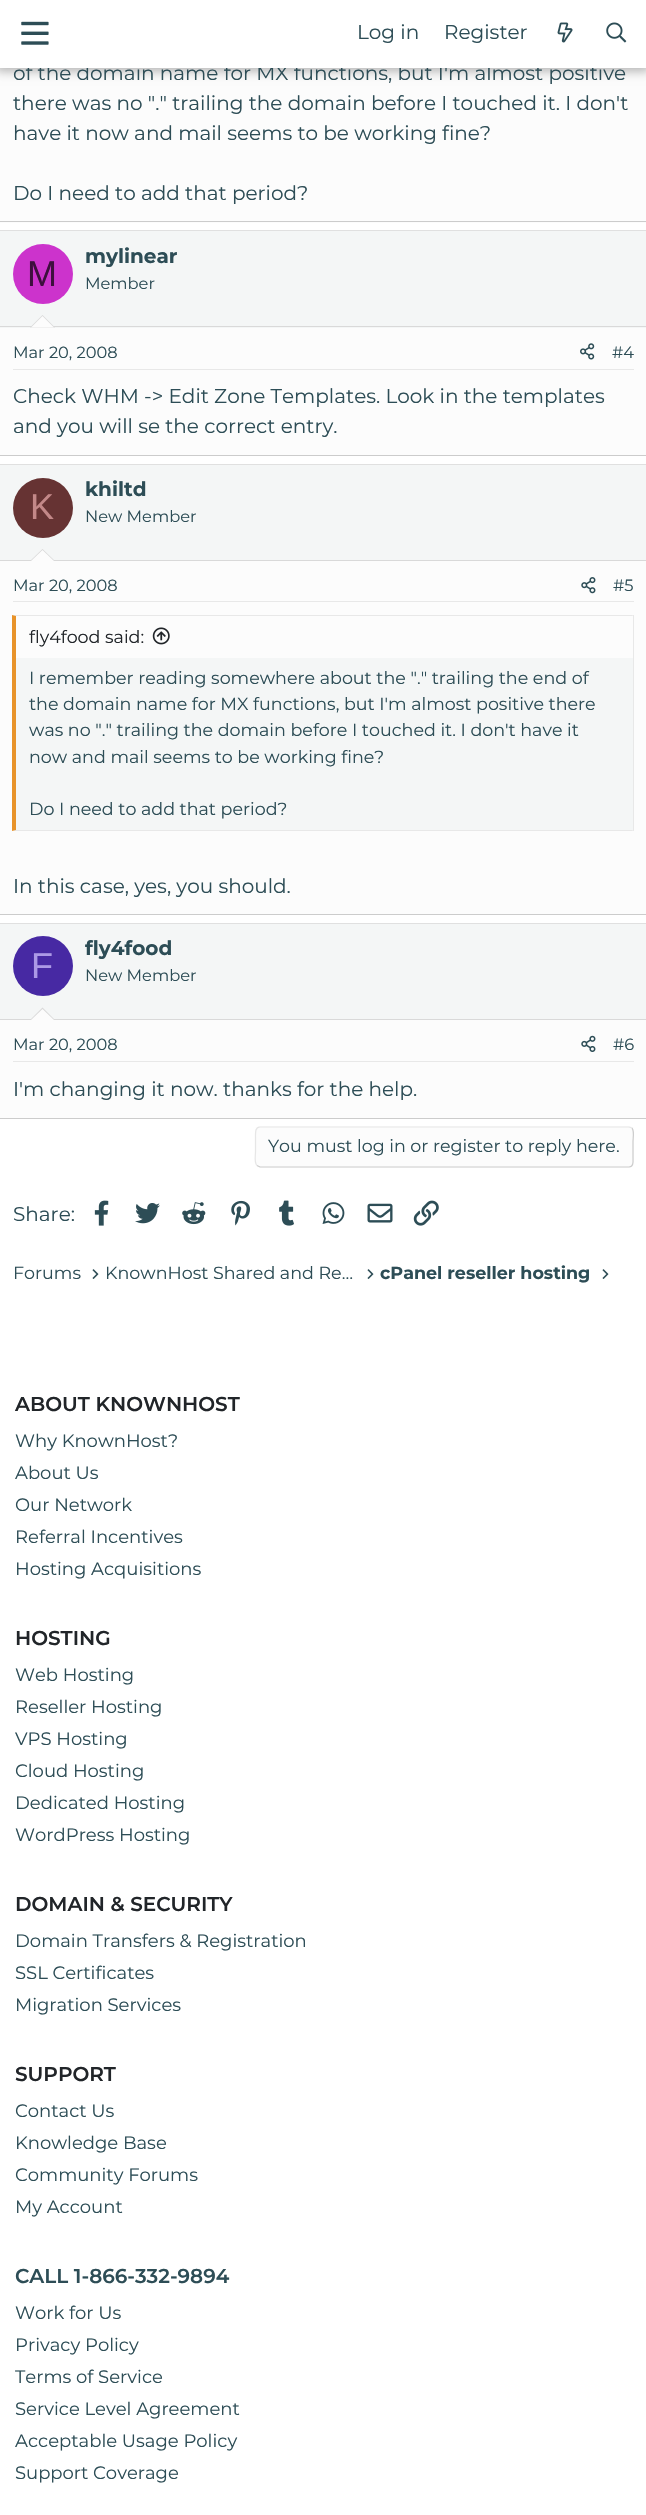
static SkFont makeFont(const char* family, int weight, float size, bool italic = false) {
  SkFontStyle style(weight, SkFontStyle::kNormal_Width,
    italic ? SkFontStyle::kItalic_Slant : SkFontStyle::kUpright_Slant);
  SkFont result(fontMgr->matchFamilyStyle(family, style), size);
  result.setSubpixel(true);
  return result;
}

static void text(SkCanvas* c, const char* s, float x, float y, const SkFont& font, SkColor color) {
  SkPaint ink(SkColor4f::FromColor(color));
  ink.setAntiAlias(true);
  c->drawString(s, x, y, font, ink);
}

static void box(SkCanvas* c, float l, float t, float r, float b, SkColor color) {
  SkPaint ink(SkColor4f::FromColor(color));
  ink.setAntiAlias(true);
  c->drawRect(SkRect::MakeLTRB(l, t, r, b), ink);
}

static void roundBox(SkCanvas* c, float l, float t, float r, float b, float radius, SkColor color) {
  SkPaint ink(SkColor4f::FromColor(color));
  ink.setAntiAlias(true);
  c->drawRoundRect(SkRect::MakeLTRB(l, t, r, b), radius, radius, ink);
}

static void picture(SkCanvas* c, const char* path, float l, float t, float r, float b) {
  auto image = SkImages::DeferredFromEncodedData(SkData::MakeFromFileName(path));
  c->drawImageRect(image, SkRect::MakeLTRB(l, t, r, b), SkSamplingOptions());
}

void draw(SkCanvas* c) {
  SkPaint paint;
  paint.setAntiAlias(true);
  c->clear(0xffffffff);
  box(c, 0, 68, 646, 223, 0xfffcfcfc);
  paint.setColor(0x4d000000);
  paint.setMaskFilter(SkMaskFilter::MakeBlur(kNormal_SkBlurStyle, 5));
  c->drawRect(SkRect::MakeLTRB(-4, -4, 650, 71), paint);
  paint.setMaskFilter(nullptr);
  SkFont face1 = makeFont("Montserrat", 400, 20);
  text(c, "of the domain name for MX functions, but I'm almost positive", 13, 80, face1, 0xff2d4d56);
  box(c, 0, 0, 646, 68, 0xffffffff);
  picture(c, "img_01.png", 21, 21, 49, 45);
  text(c, "Log in", 357, 39, face1, 0xff2d4d56);
  text(c, "Register", 444, 39, face1, 0xff2d4d56);
  picture(c, "img_02.png", 557, 22, 573, 43);
  picture(c, "img_03.png", 606, 22, 627, 43);
  box(c, 0, 221, 646, 222, 0xffcccccc);
  text(c, "there was no \".\" trailing the domain before I touched it. I don't", 13, 110, face1, 0xff2d4d56);
  text(c, "have it now and mail seems to be working fine?", 13, 140, face1, 0xff2d4d56);
  text(c, "Do I need to add that period?", 13, 200, face1, 0xff2d4d56);
  box(c, 0, 328, 646, 455, 0xfffcfcfc);
  box(c, 0, 230, 646, 231, 0xffe0e0e0);
  box(c, 0, 455, 646, 456, 0xffcccccc);
  box(c, 0, 231, 646, 328, 0xfff4f6f6);
  box(c, 0, 326, 646, 327, 0xffd9d9d9);
  paint.setColor(0xffcc33cc);
  c->drawCircle(43, 274, 30, paint);
  SkFont face2 = makeFont("Liberation Sans", 400, 36);
  text(c, "M", 27, 286, face2, 0xff3d0f3d);
  SkFont face3 = makeFont("Montserrat", 700, 20);
  text(c, "mylinear", 85, 263, face3, 0xff2d4d56);
  SkFont face4 = makeFont("Montserrat", 400, 16.25f);
  text(c, "Member", 85, 289, face4, 0xff2d4d56);
  paint.setColor(0xffd9d9d9);
  c->drawPath(SkPathBuilder().moveTo(55, 327.5f).lineTo(30, 327.5f).lineTo(42.5f, 315).close().detach(), paint);
  paint.setColor(0xfffcfcfc);
  c->drawPath(SkPathBuilder().moveTo(54, 327.5f).lineTo(31, 327.5f).lineTo(42.5f, 316).close().detach(), paint);
  box(c, 13, 369, 634, 370, 0xffe8e8e8);
  text(c, "Mar 20, 2008", 13, 358, face4, 0xff2d4d56);
  picture(c, "img_04.png", 580, 343, 595, 360);
  text(c, "#4", 612, 358, face4, 0xff2d4d56);
  text(c, "Check WHM -> Edit Zone Templates. Look in the templates", 13, 403, face1, 0xff2d4d56);
  text(c, "and you will se the correct entry.", 13, 433, face1, 0xff2d4d56);
  box(c, 0, 561, 646, 914, 0xfffcfcfc);
  box(c, 0, 464, 646, 465, 0xffe0e0e0);
  box(c, 0, 914, 646, 915, 0xffcccccc);
  box(c, 0, 465, 646, 560, 0xfff4f6f6);
  box(c, 0, 560, 646, 561, 0xffd9d9d9);
  paint.setColor(0xff663333);
  c->drawCircle(43, 508, 30, paint);
  text(c, "K", 30, 519, face2, 0xffc38888);
  text(c, "khiltd", 85, 496, face3, 0xff2d4d56);
  text(c, "New Member", 85, 522, face4, 0xff2d4d56);
  paint.setColor(0xffd9d9d9);
  c->drawPath(SkPathBuilder().moveTo(55, 561).lineTo(30, 561).lineTo(42.5f, 549).close().detach(), paint);
  paint.setColor(0xfffcfcfc);
  c->drawPath(SkPathBuilder().moveTo(54, 561).lineTo(31, 561).lineTo(42.5f, 550).close().detach(), paint);
  box(c, 13, 601, 634, 602, 0xffe8e8e8);
  text(c, "Mar 20, 2008", 13, 591, face4, 0xff2d4d56);
  picture(c, "img_05.png", 581, 577, 596, 594);
  text(c, "#5", 613, 591, face4, 0xff2d4d56);
  box(c, 16, 658, 633, 830, 0xfff4f6f6);
  paint.setColor(0xffe8e8e8);
  c->drawPath(SkPathBuilder().moveTo(12, 615).lineTo(634, 615).lineTo(632, 616).lineTo(16, 616).close().detach(), paint);
  box(c, 633, 615, 634, 831, 0xffe8e8e8);
  c->drawPath(SkPathBuilder().moveTo(634, 831).lineTo(12, 831).lineTo(16, 830).lineTo(632, 830).close().detach(), paint);
  paint.setColor(0xffe8932a);
  c->drawPath(SkPathBuilder().moveTo(12, 831).lineTo(12, 615).lineTo(16, 616).lineTo(16, 830).close().detach(), paint);
  SkFont face5 = makeFont("Montserrat", 400, 17.5f);
  text(c, "fly4food said:", 29, 643, face5, 0xff212529);
  picture(c, "img_06.png", 152, 627, 170, 645);
  text(c, "I remember reading somewhere about the \".\" trailing the end of", 29, 684, face5, 0xff2d4d56);
  text(c, "the domain name for MX functions, but I'm almost positive there", 29, 710, face5, 0xff2d4d56);
  text(c, "was no \".\" trailing the domain before I touched it. I don't have it", 29, 736, face5, 0xff2d4d56);
  text(c, "now and mail seems to be working fine?", 29, 763, face5, 0xff2d4d56);
  text(c, "Do I need to add that period?", 29, 815, face5, 0xff2d4d56);
  text(c, "In this case, yes, you should.", 13, 893, face1, 0xff2d4d56);
  box(c, 0, 1020, 646, 1118, 0xfffcfcfc);
  box(c, 0, 923, 646, 924, 0xffe0e0e0);
  box(c, 0, 1118, 646, 1119, 0xffcccccc);
  box(c, 0, 924, 646, 1019, 0xfff4f6f6);
  box(c, 0, 1019, 646, 1020, 0xffd9d9d9);
  paint.setColor(0xff4729a3);
  c->drawCircle(43, 966, 30, paint);
  text(c, "F", 31, 978, face2, 0xffac99e6);
  text(c, "fly4food", 85, 955, face3, 0xff2d4d56);
  text(c, "New Member", 85, 981, face4, 0xff2d4d56);
  paint.setColor(0xffd9d9d9);
  c->drawPath(SkPathBuilder().moveTo(55, 1020).lineTo(30, 1020).lineTo(42.5f, 1007.5f).close().detach(), paint);
  paint.setColor(0xfffcfcfc);
  c->drawPath(SkPathBuilder().moveTo(54, 1020).lineTo(31, 1020).lineTo(42.5f, 1009).close().detach(), paint);
  box(c, 13, 1061, 634, 1062, 0xffe8e8e8);
  text(c, "Mar 20, 2008", 13, 1050, face4, 0xff2d4d56);
  picture(c, "img_07.png", 581, 1035, 596, 1052);
  text(c, "#6", 613, 1050, face4, 0xff2d4d56);
  text(c, "I'm changing it now. thanks for the help.", 13, 1096, face1, 0xff2d4d56);
  roundBox(c, 255, 1126, 634, 1168, 5, 0xfffcfcfc);
  paint.setStyle(SkPaint::kStroke_Style);
  paint.setStrokeWidth(1.2f);
  paint.setColor(0xffcccccc);
  c->drawPath(SkPathBuilder().moveTo(632, 1128).cubicTo(634.5f, 1131, 633, 1138.5f, 633, 1141.5f).lineTo(633, 1157.5f).cubicTo(633, 1160.5f, 634, 1167, 629, 1167).lineTo(260, 1167).lineTo(257, 1165.5f).detach(), paint);
  paint.setColor(0xffe6e6e6);
  c->drawPath(SkPathBuilder().moveTo(257, 1165.5f).cubicTo(254, 1163, 255.5f, 1155, 255.5f, 1152).lineTo(255.5f, 1136.5f).cubicTo(255.5f, 1133, 255, 1127, 260, 1127).lineTo(629, 1127).lineTo(632, 1128).detach(), paint);
  text(c, "You must log in or register to reply here.", 268, 1152, face5, 0xff2d4d56);
  text(c, "Share:", 13, 1221, face1, 0xff2d4d56);
  picture(c, "img_08.png", 94, 1200, 109, 1226);
  picture(c, "img_09.png", 135, 1203, 160, 1224);
  picture(c, "img_10.png", 182, 1202, 206, 1225);
  picture(c, "img_11.png", 231, 1200, 250, 1226);
  picture(c, "img_12.png", 279, 1200, 294, 1226);
  picture(c, "img_13.png", 322, 1202, 345, 1224);
  picture(c, "img_14.png", 367, 1203, 393, 1223);
  picture(c, "img_15.png", 413, 1200, 439, 1226);
  text(c, "Forums", 13, 1279, face5, 0xff2d4d56);
  picture(c, "img_16.png", 92, 1269, 99, 1279);
  text(c, "KnownHost Shared and Re…", 105, 1279, face5, 0xff2d4d56);
  picture(c, "img_16.png", 367, 1269, 374, 1279);
  SkFont face6 = makeFont("Montserrat", 700, 17.5f);
  text(c, "cPanel reseller hosting", 380, 1279, face6, 0xff2d4d56);
  picture(c, "img_16.png", 602, 1269, 609, 1279);
  SkFont face7 = makeFont("Montserrat", 600, 20);
  text(c, "ABOUT KNOWNHOST", 15, 1411, face7, 0xff212529);
  SkFont face8 = makeFont("Montserrat", 400, 18);
  text(c, "Why KnownHost?", 15, 1447, face8, 0xff2d4d56);
  text(c, "About Us", 15, 1479, face8, 0xff2d4d56);
  text(c, "Our Network", 15, 1511, face8, 0xff2d4d56);
  text(c, "Referral Incentives", 15, 1543, face8, 0xff2d4d56);
  text(c, "Hosting Acquisitions", 15, 1575, face8, 0xff2d4d56);
  text(c, "HOSTING", 15, 1645, face7, 0xff212529);
  text(c, "Web Hosting", 15, 1681, face8, 0xff2d4d56);
  text(c, "Reseller Hosting", 15, 1713, face8, 0xff2d4d56);
  text(c, "VPS Hosting", 15, 1745, face8, 0xff2d4d56);
  text(c, "Cloud Hosting", 15, 1777, face8, 0xff2d4d56);
  text(c, "Dedicated Hosting", 15, 1809, face8, 0xff2d4d56);
  text(c, "WordPress Hosting", 15, 1841, face8, 0xff2d4d56);
  text(c, "DOMAIN & SECURITY", 15, 1911, face7, 0xff212529);
  text(c, "Domain Transfers & Registration", 15, 1947, face8, 0xff2d4d56);
  text(c, "SSL Certificates", 15, 1979, face8, 0xff2d4d56);
  text(c, "Migration Services", 15, 2011, face8, 0xff2d4d56);
  text(c, "SUPPORT", 15, 2081, face7, 0xff212529);
  text(c, "Contact Us", 15, 2117, face8, 0xff2d4d56);
  text(c, "Knowledge Base", 15, 2149, face8, 0xff2d4d56);
  text(c, "Community Forums", 15, 2181, face8, 0xff2d4d56);
  text(c, "My Account", 15, 2213, face8, 0xff2d4d56);
  text(c, "CALL 1-866-332-9894", 15, 2283, face7, 0xff2d4d56);
  text(c, "Work for Us", 15, 2319, face8, 0xff2d4d56);
  text(c, "Privacy Policy", 15, 2351, face8, 0xff2d4d56);
  text(c, "Terms of Service", 15, 2383, face8, 0xff2d4d56);
  text(c, "Service Level Agreement", 15, 2415, face8, 0xff2d4d56);
  text(c, "Acceptable Usage Policy", 15, 2447, face8, 0xff2d4d56);
  text(c, "Support Coverage", 15, 2479, face8, 0xff2d4d56);
}
